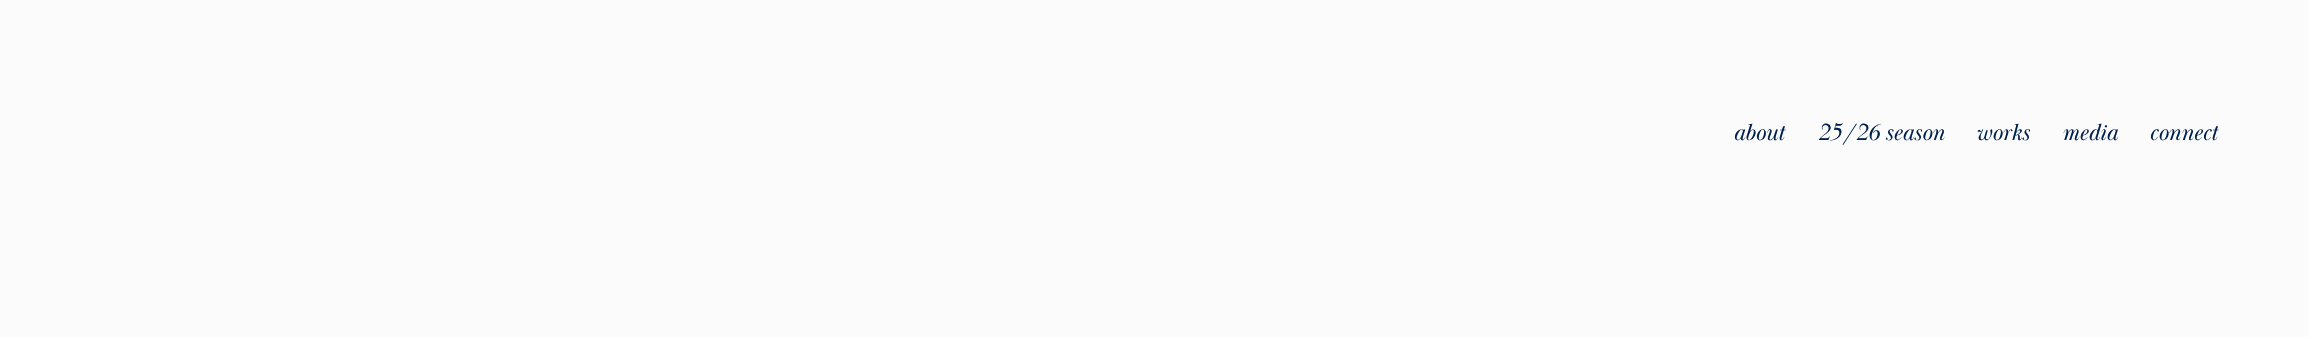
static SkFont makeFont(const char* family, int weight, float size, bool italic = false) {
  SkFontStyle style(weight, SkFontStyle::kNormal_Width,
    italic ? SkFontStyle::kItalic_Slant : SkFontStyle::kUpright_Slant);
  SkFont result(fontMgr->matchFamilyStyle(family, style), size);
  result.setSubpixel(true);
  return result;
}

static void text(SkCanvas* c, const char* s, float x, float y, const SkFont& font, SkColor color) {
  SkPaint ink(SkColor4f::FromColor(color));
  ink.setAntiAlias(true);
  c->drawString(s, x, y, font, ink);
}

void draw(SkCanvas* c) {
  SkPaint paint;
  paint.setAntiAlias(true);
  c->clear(0xfffbfbfb);
  SkFont face1 = makeFont("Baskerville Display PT", 400, 24, true);
  text(c, "about", 1733, 140, face1, 0xff00214d);
  text(c, "25/26 season", 1817, 140, face1, 0xff00214d);
  text(c, "works", 1976, 140, face1, 0xff00214d);
  text(c, "media", 2062, 140, face1, 0xff00214d);
  text(c, "connect", 2149, 140, face1, 0xff00214d);
}
